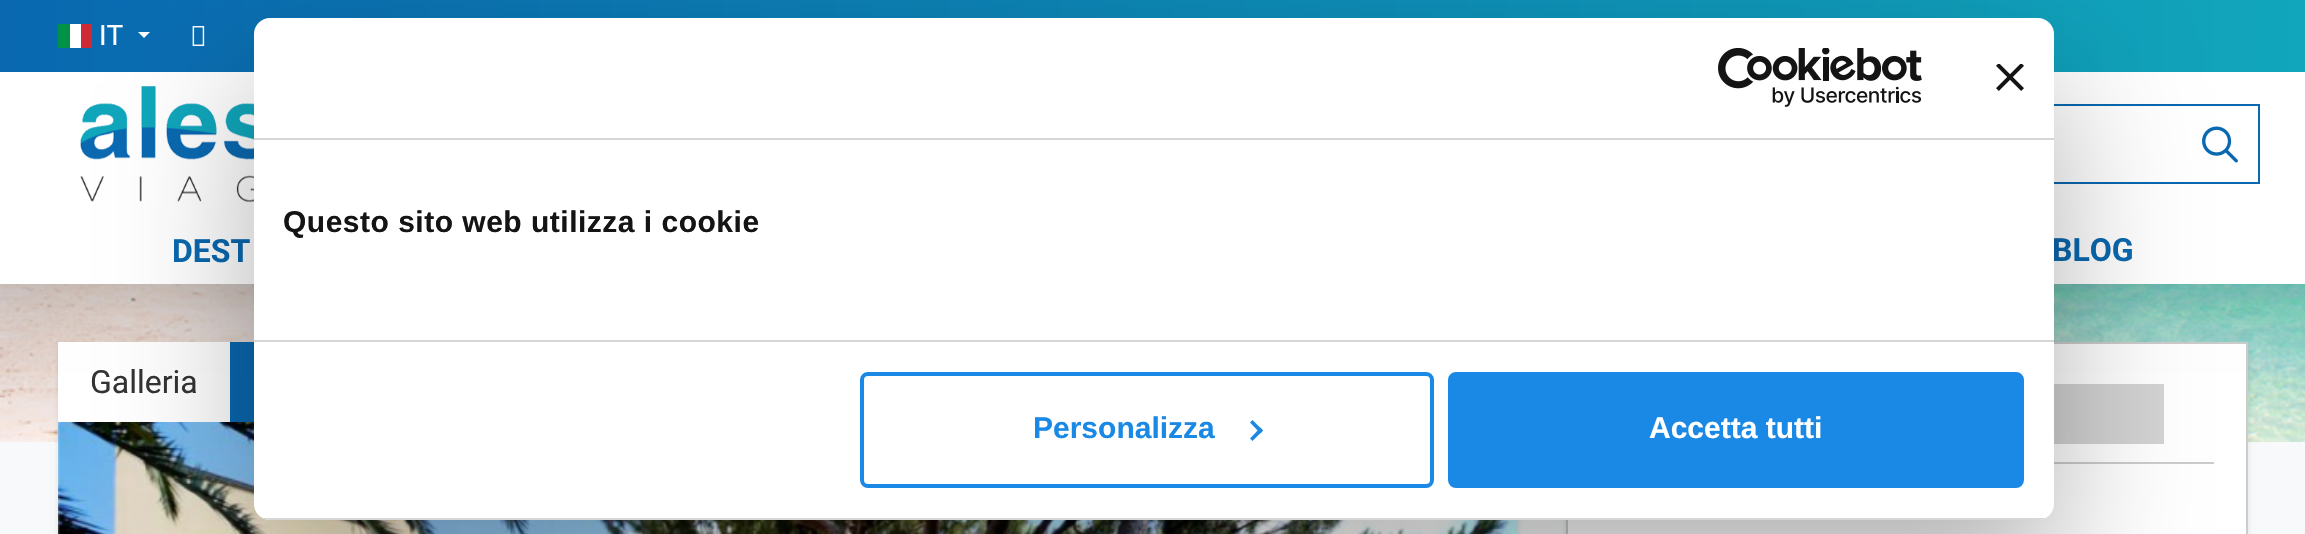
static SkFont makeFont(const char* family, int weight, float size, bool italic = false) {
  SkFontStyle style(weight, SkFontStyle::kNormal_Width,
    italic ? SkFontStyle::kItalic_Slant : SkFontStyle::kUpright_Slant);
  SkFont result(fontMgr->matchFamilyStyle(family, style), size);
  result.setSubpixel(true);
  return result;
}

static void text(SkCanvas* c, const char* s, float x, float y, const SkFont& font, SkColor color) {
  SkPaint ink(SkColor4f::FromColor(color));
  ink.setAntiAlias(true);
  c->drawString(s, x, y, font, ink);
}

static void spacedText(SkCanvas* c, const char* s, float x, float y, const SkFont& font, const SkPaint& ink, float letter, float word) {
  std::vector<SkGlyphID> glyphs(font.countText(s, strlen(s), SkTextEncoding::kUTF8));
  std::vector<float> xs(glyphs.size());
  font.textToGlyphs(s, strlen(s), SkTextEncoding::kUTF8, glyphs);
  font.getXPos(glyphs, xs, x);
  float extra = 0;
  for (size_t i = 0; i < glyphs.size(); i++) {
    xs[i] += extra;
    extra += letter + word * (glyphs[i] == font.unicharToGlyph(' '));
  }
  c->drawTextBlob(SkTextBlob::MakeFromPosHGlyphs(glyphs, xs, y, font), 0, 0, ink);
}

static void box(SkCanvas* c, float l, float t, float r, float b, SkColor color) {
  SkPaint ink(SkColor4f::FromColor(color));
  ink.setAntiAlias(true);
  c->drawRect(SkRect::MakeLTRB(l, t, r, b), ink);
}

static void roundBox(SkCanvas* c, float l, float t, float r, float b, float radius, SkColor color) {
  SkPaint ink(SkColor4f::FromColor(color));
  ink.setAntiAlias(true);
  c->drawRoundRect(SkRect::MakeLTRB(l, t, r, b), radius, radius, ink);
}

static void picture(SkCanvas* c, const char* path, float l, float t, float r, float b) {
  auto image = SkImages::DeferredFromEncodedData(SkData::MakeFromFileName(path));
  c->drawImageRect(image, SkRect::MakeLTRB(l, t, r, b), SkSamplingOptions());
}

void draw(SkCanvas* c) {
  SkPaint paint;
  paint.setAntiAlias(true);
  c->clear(0xfff8f9fa);
  picture(c, "img_04.png", 0, 284, 2305, 442);
  paint.setColor(0x17000000);
  paint.setMaskFilter(SkMaskFilter::MakeBlur(kNormal_SkBlurStyle, 3));
  c->drawRect(SkRect::MakeLTRB(58, 346, 1518, 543), paint);
  paint.setMaskFilter(nullptr);
  box(c, 230, 342, 254, 422, 0xff0968b0);
  box(c, 58, 342, 230, 422, 0xffffffff);
  paint.setMaskFilter(SkMaskFilter::MakeBlur(kNormal_SkBlurStyle, 3));
  c->drawRect(SkRect::MakeLTRB(1566, 346, 2248, 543), paint);
  paint.setMaskFilter(nullptr);
  paint.setColor(0xffffffff);
  c->drawRect(SkRect::MakeLTRB(1567, 343, 2247, 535), paint);
  paint.setStyle(SkPaint::kStroke_Style);
  paint.setStrokeWidth(2);
  paint.setColor(0xffcccccc);
  c->drawRect(SkRect::MakeLTRB(1567, 343, 2247, 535), paint);
  paint.setStyle(SkPaint::kFill_Style);
  paint.setColor(0x1a000000);
  paint.setMaskFilter(SkMaskFilter::MakeBlur(kNormal_SkBlurStyle, 30));
  c->drawRect(SkRect::MakeLTRB(0, 72, 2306, 284), paint);
  paint.setMaskFilter(nullptr);
  {
    const SkColor colors[] = {0xff0968b0, 0xff11a6bb};
    const float stops[] = {0, 1};
    const SkPoint ends[] = {{0, 36}, {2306, 36}};
    paint.setShader(SkGradientShader::MakeLinear(ends, colors, stops, 2, SkTileMode::kClamp));
    paint.setAlpha(255);
  }
  c->drawRect(SkRect::MakeLTRB(0, 0, 2305, 72), paint);
  box(c, 70, 24, 81, 48, 0xffffffff);
  box(c, 58, 24, 70, 48, 0xff009246);
  box(c, 81, 24, 92, 48, 0xffce2b37);
  SkFont face1 = makeFont("Roboto", 400, 28);
  text(c, "IT", 99, 45, face1, 0xffffffff);
  paint.setShader(nullptr);
  paint.setColor(0xffffffff);
  c->drawPath(SkPathBuilder().moveTo(138, 32).lineTo(150, 32).lineTo(144, 38).close().detach(), paint);
  picture(c, "img_01.png", 192, 26, 205, 46);
  box(c, 0, 72, 2305, 284, 0xffffffff);
  picture(c, "img_02.png", 80, 86, 254, 203);
  paint.setStyle(SkPaint::kStroke_Style);
  paint.setColor(0xff0968b0);
  c->drawRect(SkRect::MakeLTRB(1597, 105, 2259, 183), paint);
  picture(c, "img_03.png", 2202, 126, 2238, 163);
  SkFont face2 = makeFont("Roboto", 700, 32);
  text(c, "DEST", 172, 262, face2, 0xff0968b0);
  text(c, "BLOG", 2052, 261, face2, 0xff0968b0);
  SkFont face3 = makeFont("Roboto", 400, 32);
  text(c, "Galleria", 90, 393, face3, 0xff333333);
  picture(c, "img_05.png", 58, 422, 1518, 534);
  box(c, 2054, 462, 2214, 464, 0xffcccccc);
  box(c, 2054, 384, 2164, 444, 0xffd3d3d3);
  paint.setStyle(SkPaint::kFill_Style);
  paint.setColor(0x4d000000);
  paint.setMaskFilter(SkMaskFilter::MakeBlur(kNormal_SkBlurStyle, 68));
  c->drawRoundRect(SkRect::MakeLTRB(254, 82, 2054, 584), 16, 16, paint);
  paint.setMaskFilter(nullptr);
  roundBox(c, 254, 18, 2054, 520, 16, 0xffffffff);
  box(c, 254, 138, 2054, 140, 0xffd6d6d6);
  picture(c, "img_06.png", 1718, 48, 1922, 107);
  picture(c, "img_07.png", 1996, 64, 2024, 91);
  box(c, 254, 340, 2054, 342, 0xffd6d6d6);
  SkFont face4 = makeFont("Liberation Sans", 700, 30);
  paint.setColor(0xff141414);
  spacedText(c, "Questo sito web utilizza i cookie", 283, 232, face4, paint, 0.5f, 0);
  c->save();
  c->clipPath(SkPathBuilder().moveTo(270, 18).lineTo(2038, 18).cubicTo(2047, 18, 2054, 25, 2054, 34).lineTo(2054, 504).cubicTo(2054, 513, 2047, 520, 2038, 520).lineTo(270, 520).cubicTo(261, 520, 254, 513, 254, 504).lineTo(254, 34).cubicTo(254, 25, 261, 18, 270, 18).close().detach(), true);
  box(c, 254, 518, 2054, 520, 0xffd6d6d6);
  c->restore();
  paint.setStyle(SkPaint::kStroke_Style);
  paint.setStrokeWidth(4);
  paint.setColor(0xff1989e5);
  c->drawRoundRect(SkRect::MakeLTRB(862, 374, 1432, 486), 6, 6, paint);
  text(c, "Personalizza", 1033, 438, face4, 0xff1989e5);
  paint.setStyle(SkPaint::kFill_Style);
  c->drawPath(SkPathBuilder().moveTo(1252.5f, 420).lineTo(1263, 430.5f).lineTo(1260.5f, 433.5f).lineTo(1250, 422.5f).close().detach(), paint);
  c->drawPath(SkPathBuilder().moveTo(1260.5f, 427.5f).lineTo(1263, 430.5f).lineTo(1252.5f, 441).lineTo(1250, 438.5f).close().detach(), paint);
  c->drawRoundRect(SkRect::MakeLTRB(1450, 374, 2022, 486), 6, 6, paint);
  paint.setStyle(SkPaint::kStroke_Style);
  c->drawRoundRect(SkRect::MakeLTRB(1450, 374, 2022, 486), 6, 6, paint);
  text(c, "Accetta tutti", 1649, 438, face4, 0xffffffff);
}
